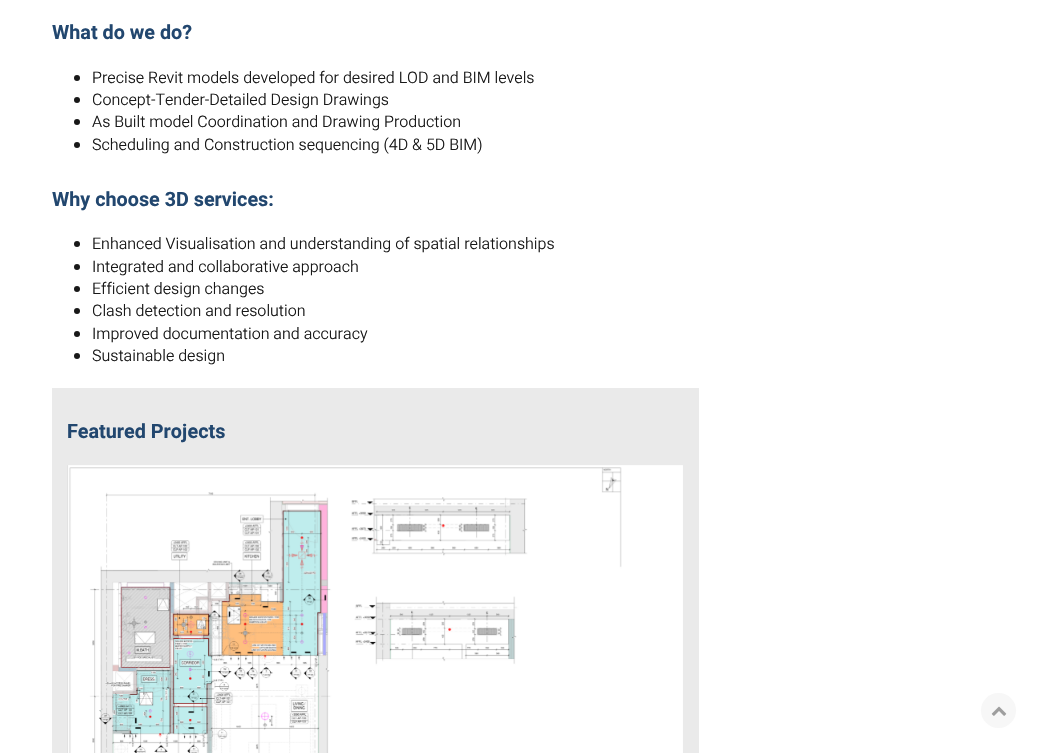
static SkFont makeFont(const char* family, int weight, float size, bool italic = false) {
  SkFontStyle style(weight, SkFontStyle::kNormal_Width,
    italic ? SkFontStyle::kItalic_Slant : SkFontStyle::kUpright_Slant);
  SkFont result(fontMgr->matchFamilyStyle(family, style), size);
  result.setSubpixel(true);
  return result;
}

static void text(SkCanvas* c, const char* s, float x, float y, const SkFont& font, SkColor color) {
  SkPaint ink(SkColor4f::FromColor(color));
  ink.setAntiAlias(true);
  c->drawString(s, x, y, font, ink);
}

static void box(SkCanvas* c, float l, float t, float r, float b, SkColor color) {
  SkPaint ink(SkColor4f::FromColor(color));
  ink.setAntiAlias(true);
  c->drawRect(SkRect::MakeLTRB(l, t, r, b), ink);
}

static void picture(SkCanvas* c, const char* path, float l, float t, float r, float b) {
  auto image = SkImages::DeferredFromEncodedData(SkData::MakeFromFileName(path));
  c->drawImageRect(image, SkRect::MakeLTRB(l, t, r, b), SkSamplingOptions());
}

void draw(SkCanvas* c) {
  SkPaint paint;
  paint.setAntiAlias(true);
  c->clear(0xffffffff);
  SkFont face1 = makeFont("Heebo", 700, 19.75f);
  text(c, "What do we do?", 52, 39, face1, 0xff22476f);
  paint.setColor(0xff181818);
  c->drawCircle(77, 78, 3, paint);
  SkFont face2 = makeFont("Heebo", 300, 16);
  text(c, "Precise Revit models developed for desired LOD and BIM levels", 92, 83, face2, 0xff181818);
  c->drawCircle(77, 100, 3, paint);
  text(c, "Concept-Tender-Detailed Design Drawings", 92, 105, face2, 0xff181818);
  c->drawCircle(77, 122, 3, paint);
  text(c, "As Built model Coordination and Drawing Production", 92, 127, face2, 0xff181818);
  c->drawCircle(77, 145, 3, paint);
  text(c, "Scheduling and Construction sequencing (4D & 5D BIM)", 92, 150, face2, 0xff181818);
  text(c, "Why choose 3D services:", 52, 206, face1, 0xff22476f);
  c->drawCircle(77, 244, 3, paint);
  text(c, "Enhanced Visualisation and understanding of spatial relationships", 92, 249, face2, 0xff181818);
  c->drawCircle(77, 267, 3, paint);
  text(c, "Integrated and collaborative approach", 92, 272, face2, 0xff181818);
  c->drawCircle(77, 289, 3, paint);
  text(c, "Efficient design changes", 92, 294, face2, 0xff181818);
  c->drawCircle(77, 311, 3, paint);
  text(c, "Clash detection and resolution", 92, 316, face2, 0xff181818);
  c->drawCircle(77, 334, 3, paint);
  text(c, "Improved documentation and accuracy", 92, 339, face2, 0xff181818);
  c->drawCircle(77, 356, 3, paint);
  text(c, "Sustainable design", 92, 361, face2, 0xff181818);
  box(c, 52, 388, 699, 753, 0xffeaeaea);
  text(c, "Featured Projects", 67, 438, face1, 0xff22476f);
  picture(c, "img_01.png", 67, 465, 683, 753);
  picture(c, "img_02.png", 67, 465, 68, 753);
  paint.setColor(0xfff7f7f7);
  c->drawCircle(998.5f, 710.5f, 17.5f, paint);
  picture(c, "img_03.png", 991, 706, 1007, 716);
}
